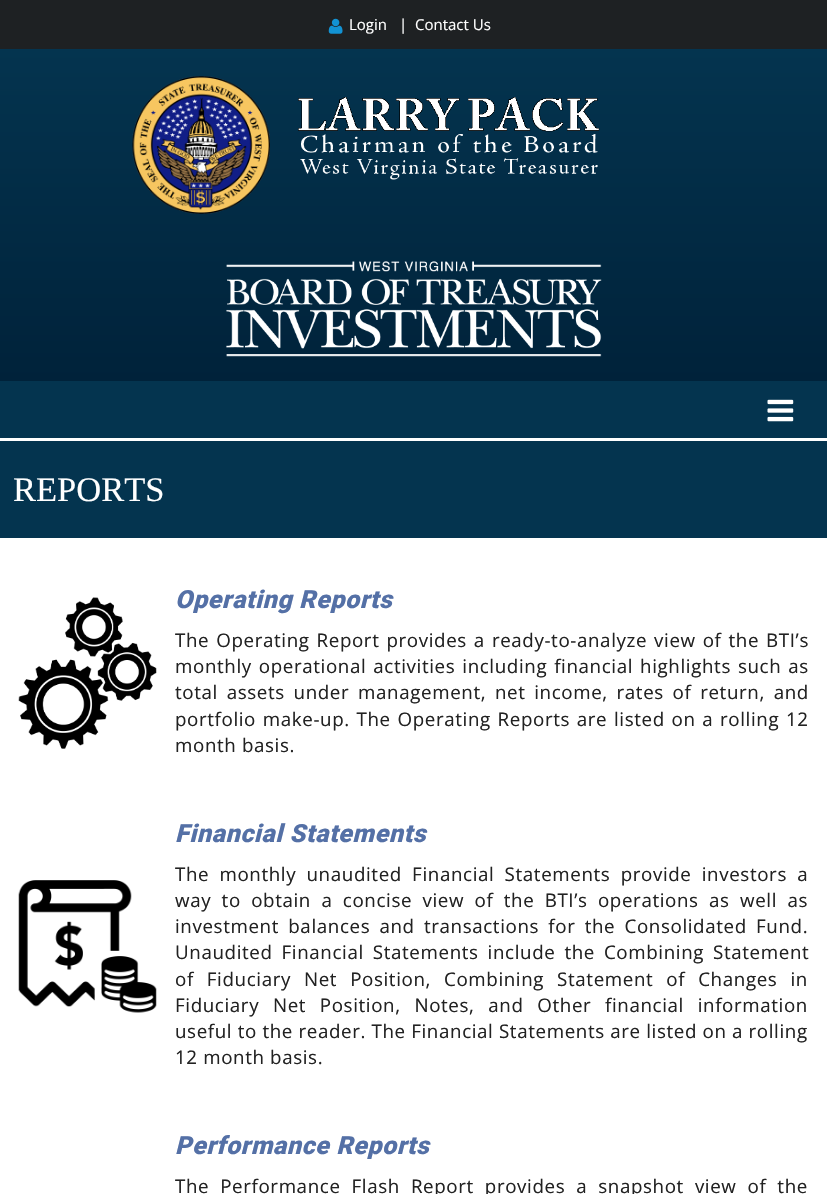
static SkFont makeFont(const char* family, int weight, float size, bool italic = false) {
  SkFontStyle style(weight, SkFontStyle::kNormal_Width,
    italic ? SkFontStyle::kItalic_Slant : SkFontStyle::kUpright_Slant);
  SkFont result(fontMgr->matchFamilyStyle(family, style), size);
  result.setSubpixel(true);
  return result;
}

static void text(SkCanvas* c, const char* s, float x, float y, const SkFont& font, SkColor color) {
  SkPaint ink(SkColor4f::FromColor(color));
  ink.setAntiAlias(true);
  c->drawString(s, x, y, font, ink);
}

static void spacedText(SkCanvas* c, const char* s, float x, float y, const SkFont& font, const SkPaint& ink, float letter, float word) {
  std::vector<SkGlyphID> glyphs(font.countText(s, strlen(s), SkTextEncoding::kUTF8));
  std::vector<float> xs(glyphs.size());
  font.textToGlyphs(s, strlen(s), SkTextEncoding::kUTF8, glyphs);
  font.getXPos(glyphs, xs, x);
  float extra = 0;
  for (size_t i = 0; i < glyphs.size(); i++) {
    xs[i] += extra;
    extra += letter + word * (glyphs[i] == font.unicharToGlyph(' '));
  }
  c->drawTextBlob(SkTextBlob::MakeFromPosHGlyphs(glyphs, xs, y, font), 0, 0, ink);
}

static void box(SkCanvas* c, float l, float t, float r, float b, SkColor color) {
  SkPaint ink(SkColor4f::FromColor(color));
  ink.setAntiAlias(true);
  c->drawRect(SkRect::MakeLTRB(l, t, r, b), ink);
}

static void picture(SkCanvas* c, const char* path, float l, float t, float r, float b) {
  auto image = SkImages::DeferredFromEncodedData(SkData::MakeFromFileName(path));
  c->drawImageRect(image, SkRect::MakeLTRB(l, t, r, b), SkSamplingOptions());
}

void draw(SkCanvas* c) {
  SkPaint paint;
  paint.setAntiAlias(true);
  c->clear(0xffffffff);
  box(c, 0, 0, 827, 49, 0xff1e2123);
  picture(c, "img_01.png", 328, 18, 343, 34);
  SkFont face1 = makeFont("Open Sans", 400, 15);
  text(c, "Login", 349, 30, face1, 0xffffffff);
  text(c, "|", 399, 30, face1, 0xffffffff);
  text(c, "Contact Us", 415, 30, face1, 0xffffffff);
  {
    const SkColor colors[] = {0xff04344f, 0xff00223a, 0xffffffff};
    const float stops[] = {0, 1, 1};
    const SkPoint ends[] = {{414, 49}, {414, 381}};
    paint.setShader(SkGradientShader::MakeLinear(ends, colors, stops, 3, SkTileMode::kClamp));
    paint.setAlpha(255);
  }
  c->drawRect(SkRect::MakeLTRB(0, 49, 827, 381), paint);
  picture(c, "img_02.png", 132, 76, 270, 214);
  picture(c, "img_03.png", 298, 97, 600, 180);
  picture(c, "img_04.png", 226, 261, 602, 357);
  box(c, 0, 381, 827, 438, 0xff04344f);
  picture(c, "img_05.png", 767, 399, 794, 422);
  box(c, 0, 441, 827, 538, 0xff04344f);
  SkFont face2 = makeFont("Liberation Serif", 400, 34.5f);
  text(c, "REPORTS", 13, 501, face2, 0xffffffff);
  picture(c, "img_06.png", 18, 597, 157, 749);
  SkFont face3 = makeFont("Roboto", 900, 25, true);
  paint.setShader(nullptr);
  paint.setColor(0xff5470a6);
  spacedText(c, "Operating Reports", 175, 608, face3, paint, 0.62f, 0);
  SkFont face4 = makeFont("Open Sans", 400, 18.75f);
  paint.setColor(0xff222222);
  spacedText(c, "The Operating Report provides a ready-to-analyze view of the BTI’s", 175, 647, face4, paint, 0.62f, 1.5f);
  spacedText(c, "monthly operational activities including financial highlights such as", 175, 673, face4, paint, 0.62f, 1.5f);
  spacedText(c, "total assets under management, net income, rates of return, and", 175, 699, face4, paint, 0.62f, 3.25f);
  spacedText(c, "portfolio make-up. The Operating Reports are listed on a rolling 12", 175, 726, face4, paint, 0.62f, 1.25f);
  spacedText(c, "month basis.", 175, 752, face4, paint, 0.62f, 0);
  paint.setColor(0xff5470a6);
  spacedText(c, "Financial Statements", 175, 842, face3, paint, 0.62f, 0);
  picture(c, "img_07.png", 18, 880, 157, 1013);
  paint.setColor(0xff222222);
  spacedText(c, "The monthly unaudited Financial Statements provide investors a", 175, 881, face4, paint, 0.62f, 4.75f);
  spacedText(c, "way to obtain a concise view of the BTI’s operations as well as", 175, 907, face4, paint, 0.62f, 4.9f);
  spacedText(c, "investment balances and transactions for the Consolidated Fund.", 175, 933, face4, paint, 0.62f, 3.75f);
  spacedText(c, "Unaudited Financial Statements include the Combining Statement", 175, 959, face4, paint, 0.62f, 3.5f);
  spacedText(c, "of Fiduciary Net Position, Combining Statement of Changes in", 175, 986, face4, paint, 0.62f, 7.5f);
  spacedText(c, "Fiduciary Net Position, Notes, and Other financial information", 175, 1012, face4, paint, 0.62f, 8.25f);
  spacedText(c, "useful to the reader. The Financial Statements are listed on a rolling", 175, 1038, face4, paint, 0.62f, 0);
  spacedText(c, "12 month basis.", 175, 1064, face4, paint, 0.62f, 0);
  paint.setColor(0xff5470a6);
  spacedText(c, "Performance Reports", 175, 1154, face3, paint, 0.62f, 0);
  paint.setColor(0xff222222);
  spacedText(c, "The Performance Flash Report provides a snapshot view of the", 175, 1193, face4, paint, 0.62f, 5.5f);
}
